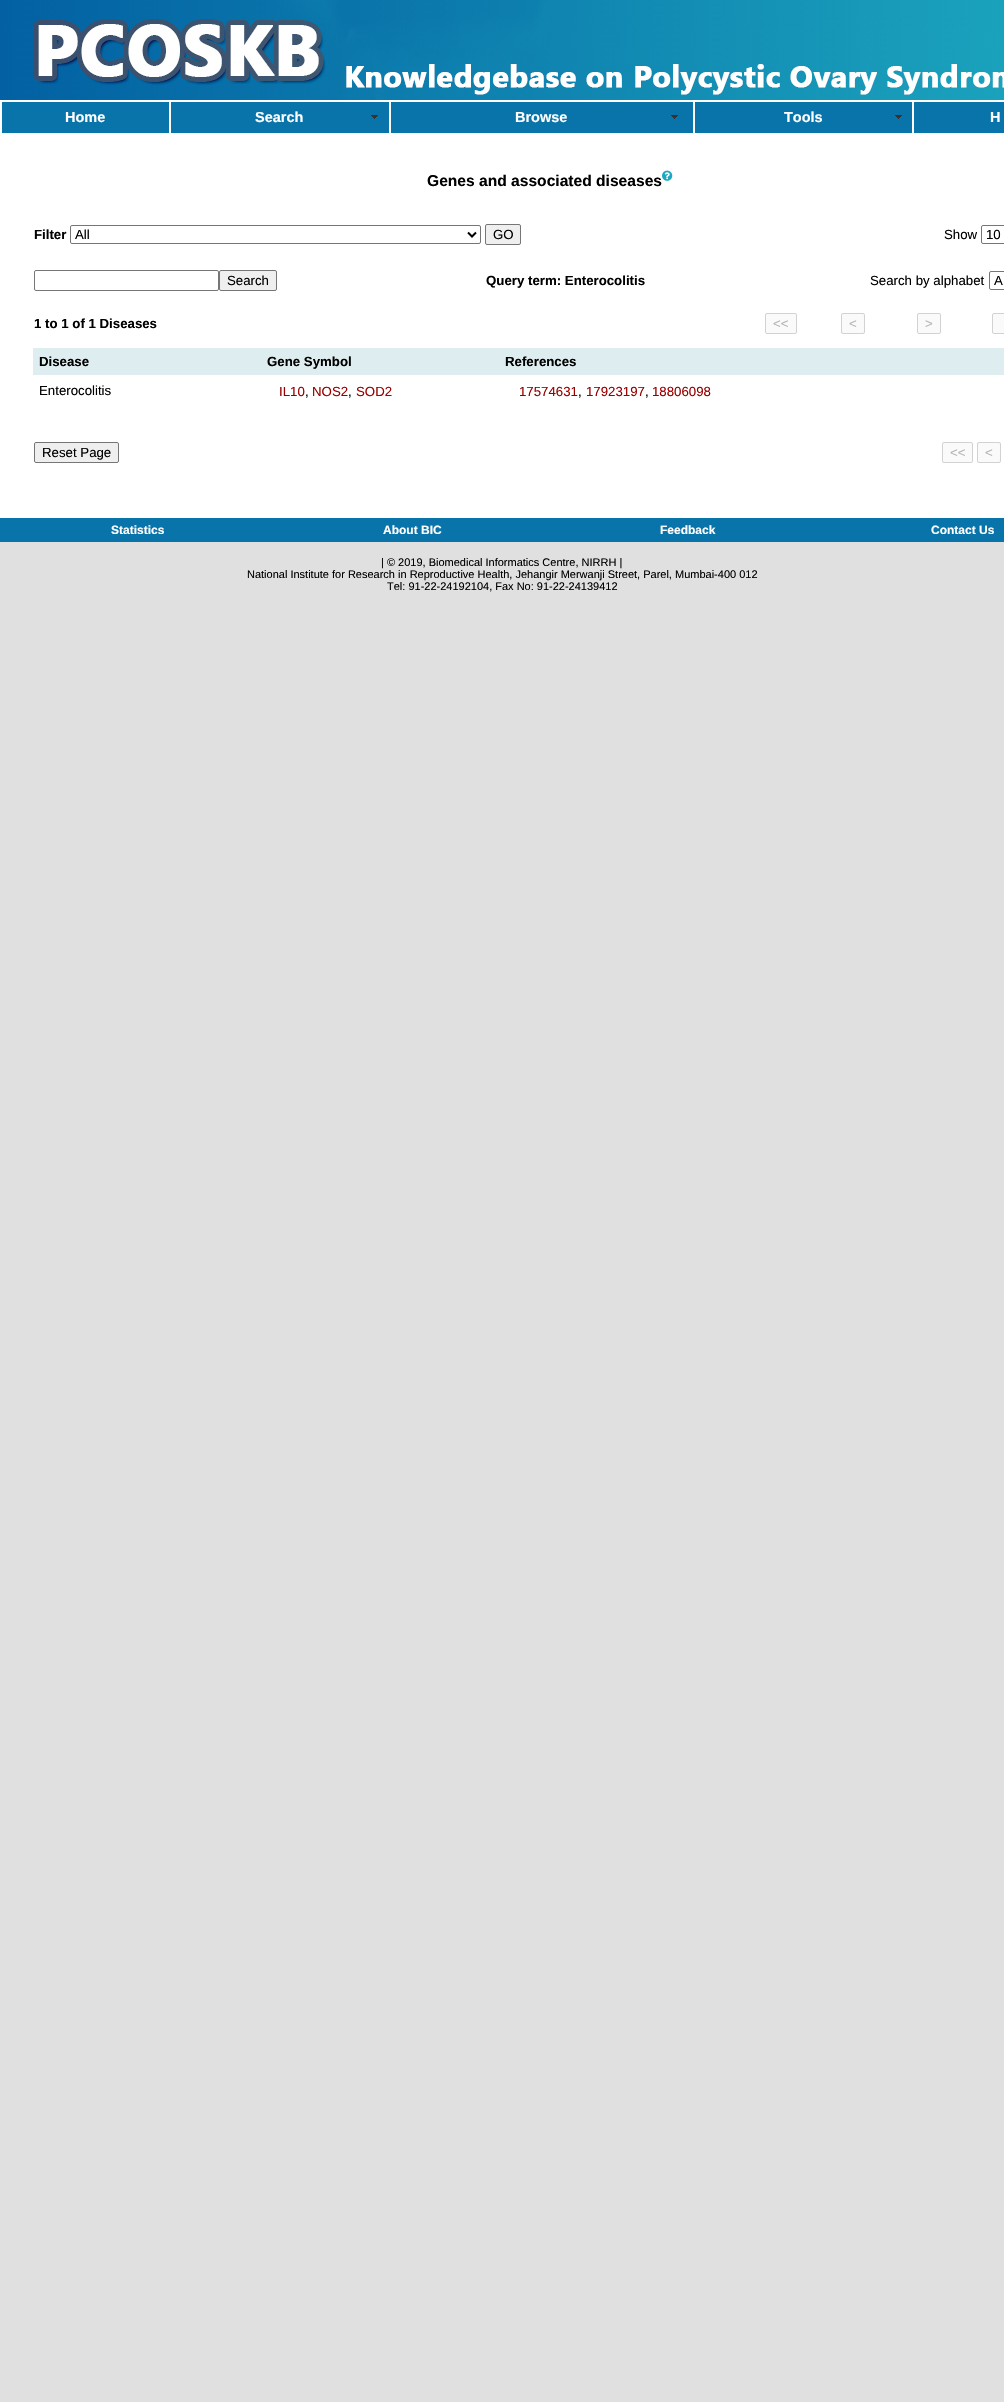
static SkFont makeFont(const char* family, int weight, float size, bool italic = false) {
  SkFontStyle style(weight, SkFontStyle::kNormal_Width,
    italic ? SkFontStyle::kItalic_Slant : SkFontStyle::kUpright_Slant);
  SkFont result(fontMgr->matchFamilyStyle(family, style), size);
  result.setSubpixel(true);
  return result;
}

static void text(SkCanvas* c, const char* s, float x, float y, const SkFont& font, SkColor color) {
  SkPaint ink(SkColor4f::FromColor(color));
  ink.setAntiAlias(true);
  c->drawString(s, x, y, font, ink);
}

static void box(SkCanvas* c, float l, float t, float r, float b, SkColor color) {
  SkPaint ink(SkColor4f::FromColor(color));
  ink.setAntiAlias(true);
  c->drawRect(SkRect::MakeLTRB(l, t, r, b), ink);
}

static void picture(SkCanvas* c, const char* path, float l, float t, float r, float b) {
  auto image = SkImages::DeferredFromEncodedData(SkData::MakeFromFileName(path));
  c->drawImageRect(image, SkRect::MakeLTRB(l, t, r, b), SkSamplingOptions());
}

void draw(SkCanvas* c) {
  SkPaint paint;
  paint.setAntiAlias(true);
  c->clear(0xffe0e0e0);
  picture(c, "img_01.png", 0, 0, 1004, 100);
  paint.setStyle(SkPaint::kStroke_Style);
  paint.setStrokeWidth(1);
  paint.setColor(0xffffffff);
  c->drawRect(SkRect::MakeLTRB(0.5f, 100.5f, 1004.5f, 134.5f), paint);
  c->drawRect(SkRect::MakeLTRB(1.5f, 101.5f, 169.5f, 133.5f), paint);
  box(c, 2, 102, 169, 133, 0xff0974aa);
  SkFont face1 = makeFont("Liberation Sans", 700, 14.5f);
  text(c, "Home", 65, 122, face1, 0xffffffff);
  c->drawRect(SkRect::MakeLTRB(170.5f, 101.5f, 389.5f, 133.5f), paint);
  box(c, 171, 102, 389, 133, 0xff0974aa);
  picture(c, "img_02.png", 371, 115, 378, 119);
  text(c, "Search", 255, 122, face1, 0xffffffff);
  c->drawRect(SkRect::MakeLTRB(390.5f, 101.5f, 693.5f, 133.5f), paint);
  box(c, 391, 102, 693, 133, 0xff0974aa);
  picture(c, "img_02.png", 671, 115, 678, 119);
  text(c, "Browse", 515, 122, face1, 0xffffffff);
  c->drawRect(SkRect::MakeLTRB(694.5f, 101.5f, 912.5f, 133.5f), paint);
  box(c, 695, 102, 912, 133, 0xff0974aa);
  picture(c, "img_02.png", 895, 115, 902, 119);
  text(c, "Tools", 784, 122, face1, 0xffffffff);
  c->drawRect(SkRect::MakeLTRB(913.5f, 101.5f, 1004.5f, 133.5f), paint);
  box(c, 914, 102, 1004, 133, 0xff0974aa);
  text(c, "H", 990, 122, face1, 0xffffffff);
  box(c, 0, 135, 1004, 518, 0xffffffff);
  SkFont face2 = makeFont("Liberation Sans", 700, 15.6f);
  text(c, "Genes and associated diseases", 427, 186, face2, 0xff000000);
  picture(c, "img_03.png", 662, 170, 673, 181);
  SkFont face3 = makeFont("Liberation Sans", 700, 13.25f);
  text(c, "Filter", 34, 239, face3, 0xff000000);
  paint.setColor(0xff767676);
  c->drawRoundRect(SkRect::MakeLTRB(70.5f, 225.5f, 480.5f, 243.5f), 1.5f, 1.5f, paint);
  paint.setStrokeWidth(2);
  paint.setColor(0xff000000);
  c->drawPath(SkPathBuilder().moveTo(468, 232.5f).lineTo(472, 236.5f).lineTo(476, 232.5f).detach(), paint);
  SkFont face4 = makeFont("Liberation Sans", 400, 13.25f);
  text(c, "All", 75, 239, face4, 0xff000000);
  paint.setStyle(SkPaint::kFill_Style);
  paint.setColor(0xffefefef);
  c->drawRoundRect(SkRect::MakeLTRB(485.5f, 224.5f, 520.5f, 244.5f), 1.5f, 1.5f, paint);
  paint.setStyle(SkPaint::kStroke_Style);
  paint.setStrokeWidth(1);
  paint.setColor(0xff767676);
  c->drawRoundRect(SkRect::MakeLTRB(485.5f, 224.5f, 520.5f, 244.5f), 1.5f, 1.5f, paint);
  text(c, "GO", 493, 239, face4, 0xff000000);
  text(c, "Show", 944, 239, face4, 0xff000000);
  c->drawRoundRect(SkRect::MakeLTRB(981.5f, 225.5f, 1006.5f, 243.5f), 1.5f, 1.5f, paint);
  text(c, "10", 986, 239, face4, 0xff000000);
  c->drawRoundRect(SkRect::MakeLTRB(34.5f, 270.5f, 218.5f, 290.5f), 1.5f, 1.5f, paint);
  paint.setStyle(SkPaint::kFill_Style);
  paint.setColor(0xffefefef);
  c->drawRoundRect(SkRect::MakeLTRB(219.5f, 270.5f, 276.5f, 290.5f), 1.5f, 1.5f, paint);
  paint.setStyle(SkPaint::kStroke_Style);
  paint.setColor(0xff767676);
  c->drawRoundRect(SkRect::MakeLTRB(219.5f, 270.5f, 276.5f, 290.5f), 1.5f, 1.5f, paint);
  text(c, "Search", 227, 285, face4, 0xff000000);
  text(c, "Query term: Enterocolitis", 486, 285, face3, 0xff000000);
  text(c, "Search by alphabet", 870, 285, face4, 0xff000000);
  c->drawRoundRect(SkRect::MakeLTRB(989.5f, 271.5f, 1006.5f, 289.5f), 1.5f, 1.5f, paint);
  text(c, "A", 994, 285, face4, 0xff000000);
  text(c, "1 to 1 of 1 Diseases", 34, 328, face3, 0xff000000);
  paint.setStyle(SkPaint::kFill_Style);
  paint.setColor(0xfffafafa);
  c->drawRoundRect(SkRect::MakeLTRB(765.5f, 313.5f, 796.5f, 333.5f), 1.5f, 1.5f, paint);
  paint.setStyle(SkPaint::kStroke_Style);
  paint.setColor(0xffd2d2d2);
  c->drawRoundRect(SkRect::MakeLTRB(765.5f, 313.5f, 796.5f, 333.5f), 1.5f, 1.5f, paint);
  text(c, "<<", 773, 328, face4, 0xffb4b4b4);
  paint.setStyle(SkPaint::kFill_Style);
  paint.setColor(0xfffafafa);
  c->drawRoundRect(SkRect::MakeLTRB(841.5f, 313.5f, 864.5f, 333.5f), 1.5f, 1.5f, paint);
  paint.setStyle(SkPaint::kStroke_Style);
  paint.setColor(0xffd2d2d2);
  c->drawRoundRect(SkRect::MakeLTRB(841.5f, 313.5f, 864.5f, 333.5f), 1.5f, 1.5f, paint);
  text(c, "<", 849, 328, face4, 0xffb4b4b4);
  paint.setStyle(SkPaint::kFill_Style);
  paint.setColor(0xfffafafa);
  c->drawRoundRect(SkRect::MakeLTRB(917.5f, 313.5f, 940.5f, 333.5f), 1.5f, 1.5f, paint);
  paint.setStyle(SkPaint::kStroke_Style);
  paint.setColor(0xffd2d2d2);
  c->drawRoundRect(SkRect::MakeLTRB(917.5f, 313.5f, 940.5f, 333.5f), 1.5f, 1.5f, paint);
  text(c, ">", 925, 328, face4, 0xffb4b4b4);
  paint.setStyle(SkPaint::kFill_Style);
  paint.setColor(0xfffafafa);
  c->drawRoundRect(SkRect::MakeLTRB(992.5f, 313.5f, 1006.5f, 333.5f), 1.5f, 1.5f, paint);
  paint.setStyle(SkPaint::kStroke_Style);
  paint.setColor(0xffd2d2d2);
  c->drawRoundRect(SkRect::MakeLTRB(992.5f, 313.5f, 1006.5f, 333.5f), 1.5f, 1.5f, paint);
  box(c, 33, 348, 1004, 375, 0xffdeedef);
  text(c, "Disease", 39, 366, face3, 0xff000000);
  text(c, "Gene Symbol", 267, 366, face3, 0xff000000);
  text(c, "References", 505, 366, face3, 0xff000000);
  text(c, "Enterocolitis", 39, 395, face4, 0xff000000);
  text(c, "IL10", 279, 396, face4, 0xff990000);
  text(c, ",", 305, 396, face4, 0xff000000);
  text(c, "NOS2", 312, 396, face4, 0xff990000);
  text(c, ",", 348, 396, face4, 0xff000000);
  text(c, "SOD2", 356, 396, face4, 0xff990000);
  text(c, "17574631", 519, 396, face4, 0xff990000);
  text(c, ",", 578, 396, face4, 0xff000000);
  text(c, "17923197", 586, 396, face4, 0xff990000);
  text(c, ",", 645, 396, face4, 0xff000000);
  text(c, "18806098", 652, 396, face4, 0xff990000);
  paint.setStyle(SkPaint::kFill_Style);
  paint.setColor(0xffefefef);
  c->drawRoundRect(SkRect::MakeLTRB(34.5f, 442.5f, 118.5f, 462.5f), 1.5f, 1.5f, paint);
  paint.setStyle(SkPaint::kStroke_Style);
  paint.setColor(0xff767676);
  c->drawRoundRect(SkRect::MakeLTRB(34.5f, 442.5f, 118.5f, 462.5f), 1.5f, 1.5f, paint);
  text(c, "Reset Page", 42, 457, face4, 0xff000000);
  paint.setStyle(SkPaint::kFill_Style);
  paint.setColor(0xfffafafa);
  c->drawRoundRect(SkRect::MakeLTRB(942.5f, 442.5f, 972.5f, 462.5f), 1.5f, 1.5f, paint);
  paint.setStyle(SkPaint::kStroke_Style);
  paint.setColor(0xffd2d2d2);
  c->drawRoundRect(SkRect::MakeLTRB(942.5f, 442.5f, 972.5f, 462.5f), 1.5f, 1.5f, paint);
  text(c, "<<", 950, 457, face4, 0xffb4b4b4);
  paint.setStyle(SkPaint::kFill_Style);
  paint.setColor(0xfffafafa);
  c->drawRoundRect(SkRect::MakeLTRB(977.5f, 442.5f, 1000.5f, 462.5f), 1.5f, 1.5f, paint);
  paint.setStyle(SkPaint::kStroke_Style);
  paint.setColor(0xffd2d2d2);
  c->drawRoundRect(SkRect::MakeLTRB(977.5f, 442.5f, 1000.5f, 462.5f), 1.5f, 1.5f, paint);
  text(c, "<", 985, 457, face4, 0xffb4b4b4);
  box(c, 0, 518, 1004, 542, 0xff0974aa);
  SkFont face5 = makeFont("Liberation Sans", 700, 12);
  text(c, "Statistics", 111, 534, face5, 0xffffffff);
  text(c, "About BIC", 383, 534, face5, 0xffffffff);
  text(c, "Feedback", 660, 534, face5, 0xffffffff);
  text(c, "Contact Us", 931, 534, face5, 0xffffffff);
  SkFont face6 = makeFont("Liberation Sans", 400, 11);
  text(c, "| © 2019, Biomedical Informatics Centre, NIRRH |", 381, 566, face6, 0xff000000);
  text(c, "National Institute for Research in Reproductive Health, Jehangir Merwanji Street, Parel, Mumbai-400 012", 247, 578, face6, 0xff000000);
  text(c, "Tel: 91-22-24192104, Fax No: 91-22-24139412", 387, 590, face6, 0xff000000);
}
